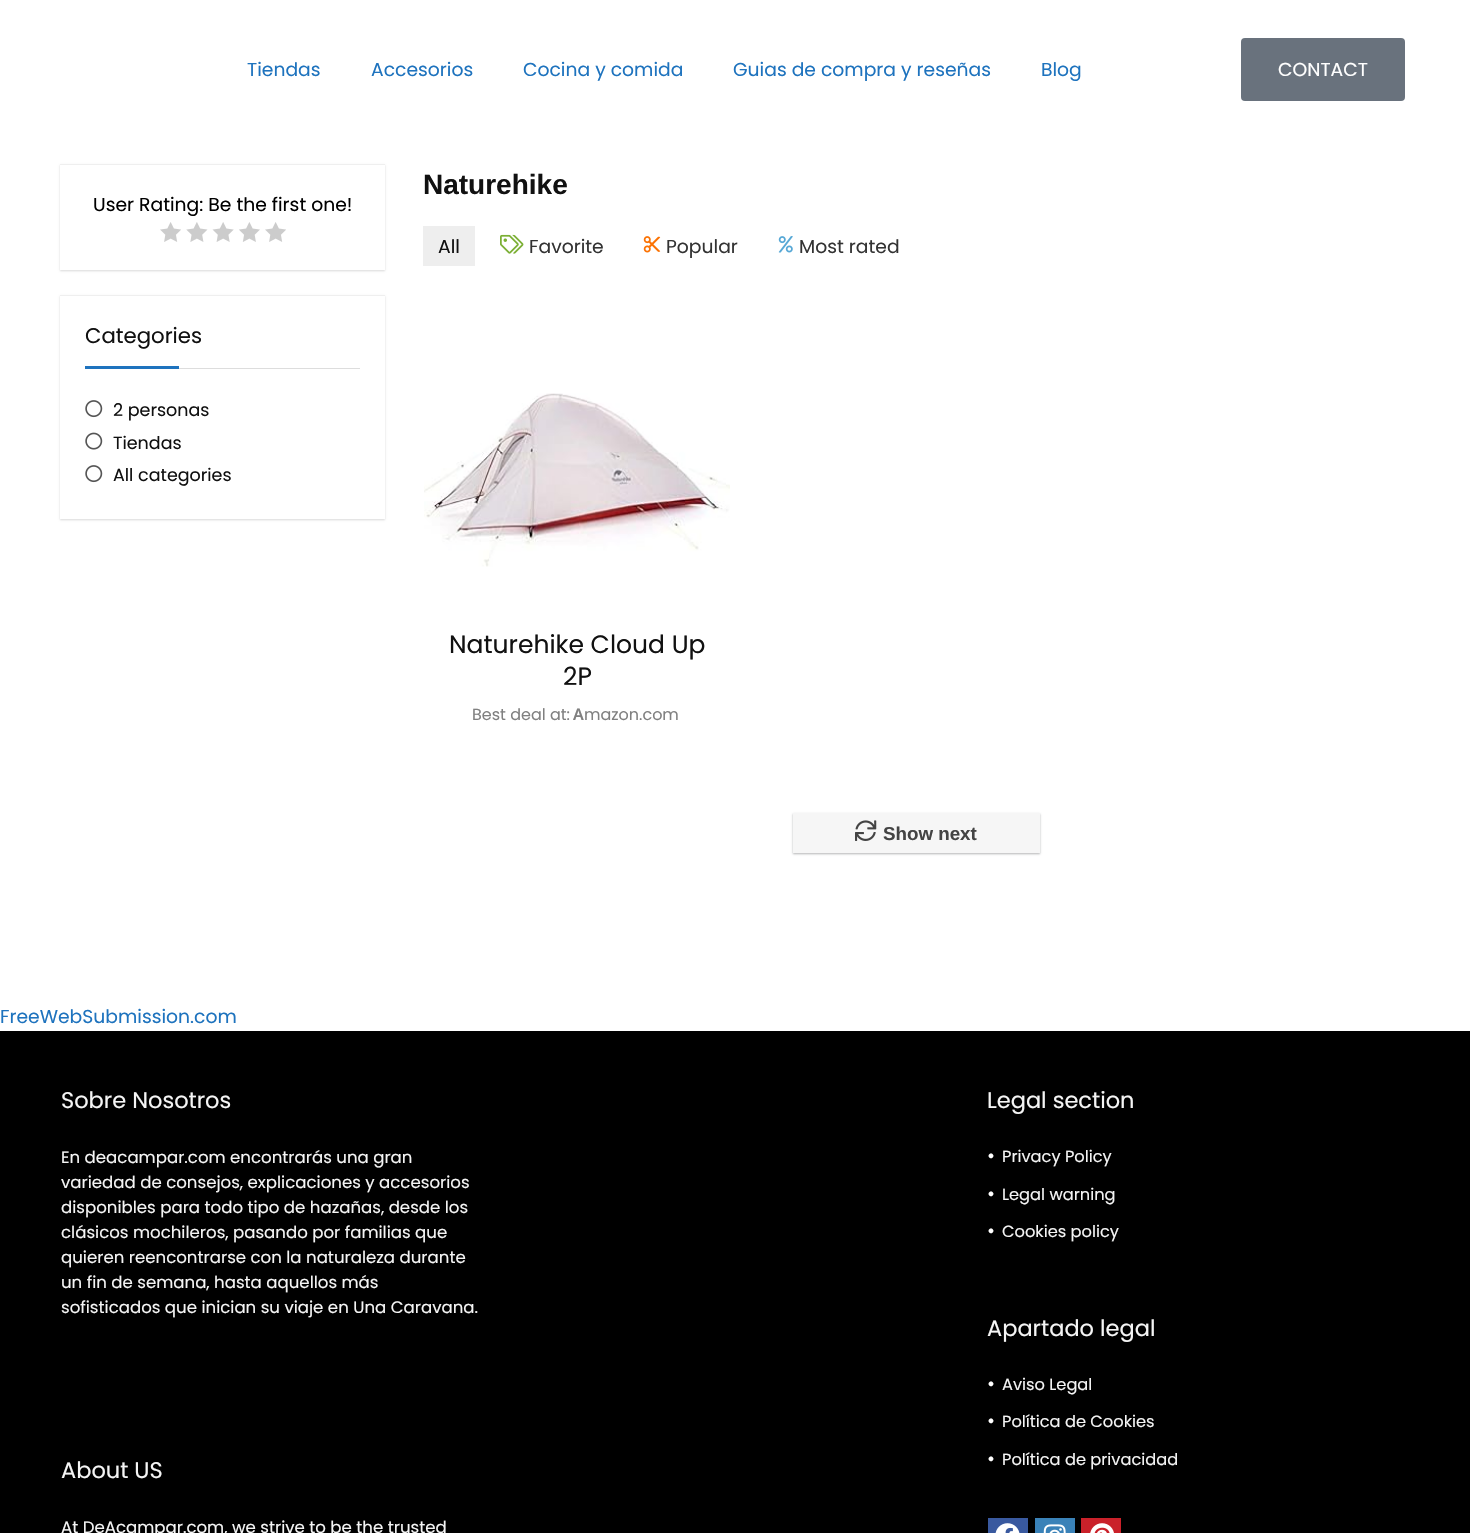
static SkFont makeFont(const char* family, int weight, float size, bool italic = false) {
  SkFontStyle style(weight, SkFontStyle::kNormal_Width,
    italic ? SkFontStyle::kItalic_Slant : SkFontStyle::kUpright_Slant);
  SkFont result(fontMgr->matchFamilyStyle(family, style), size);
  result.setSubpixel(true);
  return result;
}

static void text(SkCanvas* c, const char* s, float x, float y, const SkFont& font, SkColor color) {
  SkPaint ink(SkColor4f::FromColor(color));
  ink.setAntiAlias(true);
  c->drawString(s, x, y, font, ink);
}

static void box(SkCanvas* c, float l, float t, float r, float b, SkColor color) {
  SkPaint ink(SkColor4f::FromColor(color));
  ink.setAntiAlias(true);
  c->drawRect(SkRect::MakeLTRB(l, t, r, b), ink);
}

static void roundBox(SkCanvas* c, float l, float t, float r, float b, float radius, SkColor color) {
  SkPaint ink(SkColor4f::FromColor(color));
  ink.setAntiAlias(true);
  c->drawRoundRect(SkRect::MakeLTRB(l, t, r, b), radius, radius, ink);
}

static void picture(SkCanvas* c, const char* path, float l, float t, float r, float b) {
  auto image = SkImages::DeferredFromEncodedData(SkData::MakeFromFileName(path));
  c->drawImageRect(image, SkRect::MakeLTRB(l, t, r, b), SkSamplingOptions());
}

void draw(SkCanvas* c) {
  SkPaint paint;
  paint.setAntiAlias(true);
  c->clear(0xffffffff);
  SkFont face1 = makeFont("Poppins", 400, 18.75f);
  text(c, "Tiendas", 247, 76, face1, 0xff1e73be);
  text(c, "Accesorios", 371, 76, face1, 0xff1e73be);
  text(c, "Cocina y comida", 523, 76, face1, 0xff1e73be);
  text(c, "Guias de compra y reseñas", 733, 76, face1, 0xff1e73be);
  text(c, "Blog", 1041, 76, face1, 0xff1e73be);
  roundBox(c, 1241, 38, 1405, 101, 4, 0xff69727d);
  text(c, "CONTACT", 1278, 76, face1, 0xffffffff);
  SkFont face2 = makeFont("Liberation Sans", 700, 28);
  text(c, "Naturehike", 423, 194, face2, 0xff111111);
  c->save();
  c->clipPath(SkPathBuilder(SkPathFillType::kEvenOdd).moveTo(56, 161).lineTo(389, 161).lineTo(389, 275).lineTo(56, 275).close().moveTo(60, 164).lineTo(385, 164).lineTo(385, 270).lineTo(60, 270).close().detach(), true);
  paint.setColor(0x26000000);
  paint.setMaskFilter(SkMaskFilter::MakeBlur(kNormal_SkBlurStyle, 1));
  c->drawRect(SkRect::MakeLTRB(60, 165, 385, 271), paint);
  paint.setMaskFilter(nullptr);
  c->restore();
  box(c, 60, 164, 385, 165, 0xffefefef);
  text(c, "User Rating: Be the first one!", 93, 211, face1, 0xff000000);
  picture(c, "img_01.png", 160, 222, 181, 242);
  picture(c, "img_02.png", 186, 222, 208, 242);
  picture(c, "img_03.png", 212, 222, 234, 242);
  picture(c, "img_04.png", 239, 222, 260, 242);
  picture(c, "img_01.png", 265, 222, 286, 242);
  paint.setMaskFilter(SkMaskFilter::MakeBlur(kNormal_SkBlurStyle, 1));
  c->drawRect(SkRect::MakeLTRB(60, 296, 385, 520), paint);
  paint.setMaskFilter(nullptr);
  box(c, 60, 296, 385, 519, 0xffffffff);
  box(c, 60, 295, 385, 296, 0xffefefef);
  box(c, 179, 368, 360, 369, 0xffdddddd);
  SkFont face3 = makeFont("Poppins", 400, 21.25f);
  text(c, "Categories", 85, 343, face3, 0xff111111);
  box(c, 85, 366, 179, 369, 0xff1e73be);
  picture(c, "img_05.png", 85, 400, 103, 418);
  SkFont face4 = makeFont("Poppins", 400, 17.5f);
  text(c, "2 personas", 113, 416, face4, 0xff111111);
  picture(c, "img_06.png", 85, 432, 103, 450);
  text(c, "Tiendas", 113, 449, face4, 0xff111111);
  picture(c, "img_05.png", 85, 465, 103, 483);
  text(c, "All categories", 113, 481, face4, 0xff111111);
  box(c, 423, 226, 475, 266, 0xffeeeeee);
  text(c, "All", 438, 253, face1, 0xff111111);
  picture(c, "img_07.png", 500, 234, 524, 254);
  text(c, "Favorite", 529, 253, face1, 0xff333333);
  picture(c, "img_08.png", 643, 236, 661, 253);
  text(c, "Popular", 666, 253, face1, 0xff333333);
  picture(c, "img_09.png", 778, 236, 793, 253);
  text(c, "Most rated", 799, 253, face1, 0xff333333);
  picture(c, "img_10.png", 424, 393, 730, 567);
  SkFont face5 = makeFont("Poppins", 400, 25);
  text(c, "Naturehike Cloud Up", 449, 653, face5, 0xff111111);
  text(c, "2P", 563, 685, face5, 0xff111111);
  SkFont face6 = makeFont("Poppins", 400, 16);
  text(c, "Best deal at:", 472, 720, face6, 0xff808080);
  SkFont face7 = makeFont("Noto Sans", 600, 16);
  text(c, "A", 573, 720, face7, 0xff808080);
  text(c, "mazon.com", 584, 720, face6, 0xff808080);
  paint.setColor(0x14000000);
  paint.setMaskFilter(SkMaskFilter::MakeBlur(kNormal_SkBlurStyle, 1));
  c->drawRect(SkRect::MakeLTRB(793, 814, 1040, 854), paint);
  paint.setMaskFilter(nullptr);
  paint.setColor(0x4d3c4043);
  paint.setMaskFilter(SkMaskFilter::MakeBlur(kNormal_SkBlurStyle, 1));
  c->drawRect(SkRect::MakeLTRB(793, 814, 1040, 854), paint);
  paint.setMaskFilter(nullptr);
  box(c, 793, 813, 1040, 853, 0xfff6f6f6);
  picture(c, "img_11.png", 855, 820, 877, 841);
  SkFont face8 = makeFont("Liberation Sans", 700, 18.75f);
  text(c, "Show next", 883, 840, face8, 0xff444444);
  text(c, "FreeWebSubmission.com", 0, 1023, face1, 0xff1e73be);
  box(c, 0, 1031, 1470, 1533, 0xff000000);
  SkFont face9 = makeFont("Poppins", 400, 22.5f);
  text(c, "Sobre Nosotros", 61, 1108, face9, 0xfff5f5f5);
  SkFont face10 = makeFont("Poppins", 400, 16.6f);
  text(c, "En deacampar.com encontrarás una gran", 61, 1163, face10, 0xfff5f5f5);
  text(c, "variedad de consejos, explicaciones y accesorios", 61, 1188, face10, 0xfff5f5f5);
  text(c, "disponibles para todo tipo de hazañas, desde los", 61, 1213, face10, 0xfff5f5f5);
  text(c, "clásicos mochileros, pasando por familias que", 61, 1238, face10, 0xfff5f5f5);
  text(c, "quieren reencontrarse con la naturaleza durante", 61, 1263, face10, 0xfff5f5f5);
  text(c, "un fin de semana, hasta aquellos más", 61, 1288, face10, 0xfff5f5f5);
  text(c, "sofisticados que inician su viaje en Una Caravana.", 61, 1313, face10, 0xfff5f5f5);
  text(c, "About US", 61, 1478, face9, 0xfff5f5f5);
  text(c, "At DeAcampar.com, we strive to be the trusted", 61, 1533, face10, 0xfff5f5f5);
  text(c, "Legal section", 987, 1108, face9, 0xfff5f5f5);
  SkFont face11 = makeFont("Poppins", 400, 38);
  text(c, ".", 987, 1158, face11, 0xffffffff);
  SkFont face12 = makeFont("Poppins", 400, 16.25f);
  text(c, "Privacy Policy", 1002, 1162, face12, 0xfff5f5f5);
  text(c, ".", 987, 1196, face11, 0xffffffff);
  text(c, "Legal warning", 1002, 1200, face12, 0xfff5f5f5);
  text(c, ".", 987, 1233, face11, 0xffffffff);
  text(c, "Cookies policy", 1002, 1237, face12, 0xfff5f5f5);
  text(c, "Apartado legal", 987, 1336, face9, 0xfff5f5f5);
  text(c, ".", 987, 1386, face11, 0xffffffff);
  text(c, "Aviso Legal", 1002, 1390, face12, 0xfff5f5f5);
  text(c, ".", 987, 1423, face11, 0xffffffff);
  text(c, "Política de Cookies", 1002, 1427, face12, 0xfff5f5f5);
  text(c, ".", 987, 1461, face11, 0xffffffff);
  text(c, "Política de privacidad", 1002, 1465, face12, 0xfff5f5f5);
  box(c, 988, 1518, 1028, 1533, 0xff39599f);
  picture(c, "img_12.png", 995, 1523, 1020, 1533);
  box(c, 1035, 1518, 1075, 1533, 0xff3a82b8);
  picture(c, "img_13.png", 1043, 1524, 1066, 1533);
  box(c, 1081, 1518, 1121, 1533, 0xffca212a);
  picture(c, "img_14.png", 1090, 1523, 1114, 1533);
}
